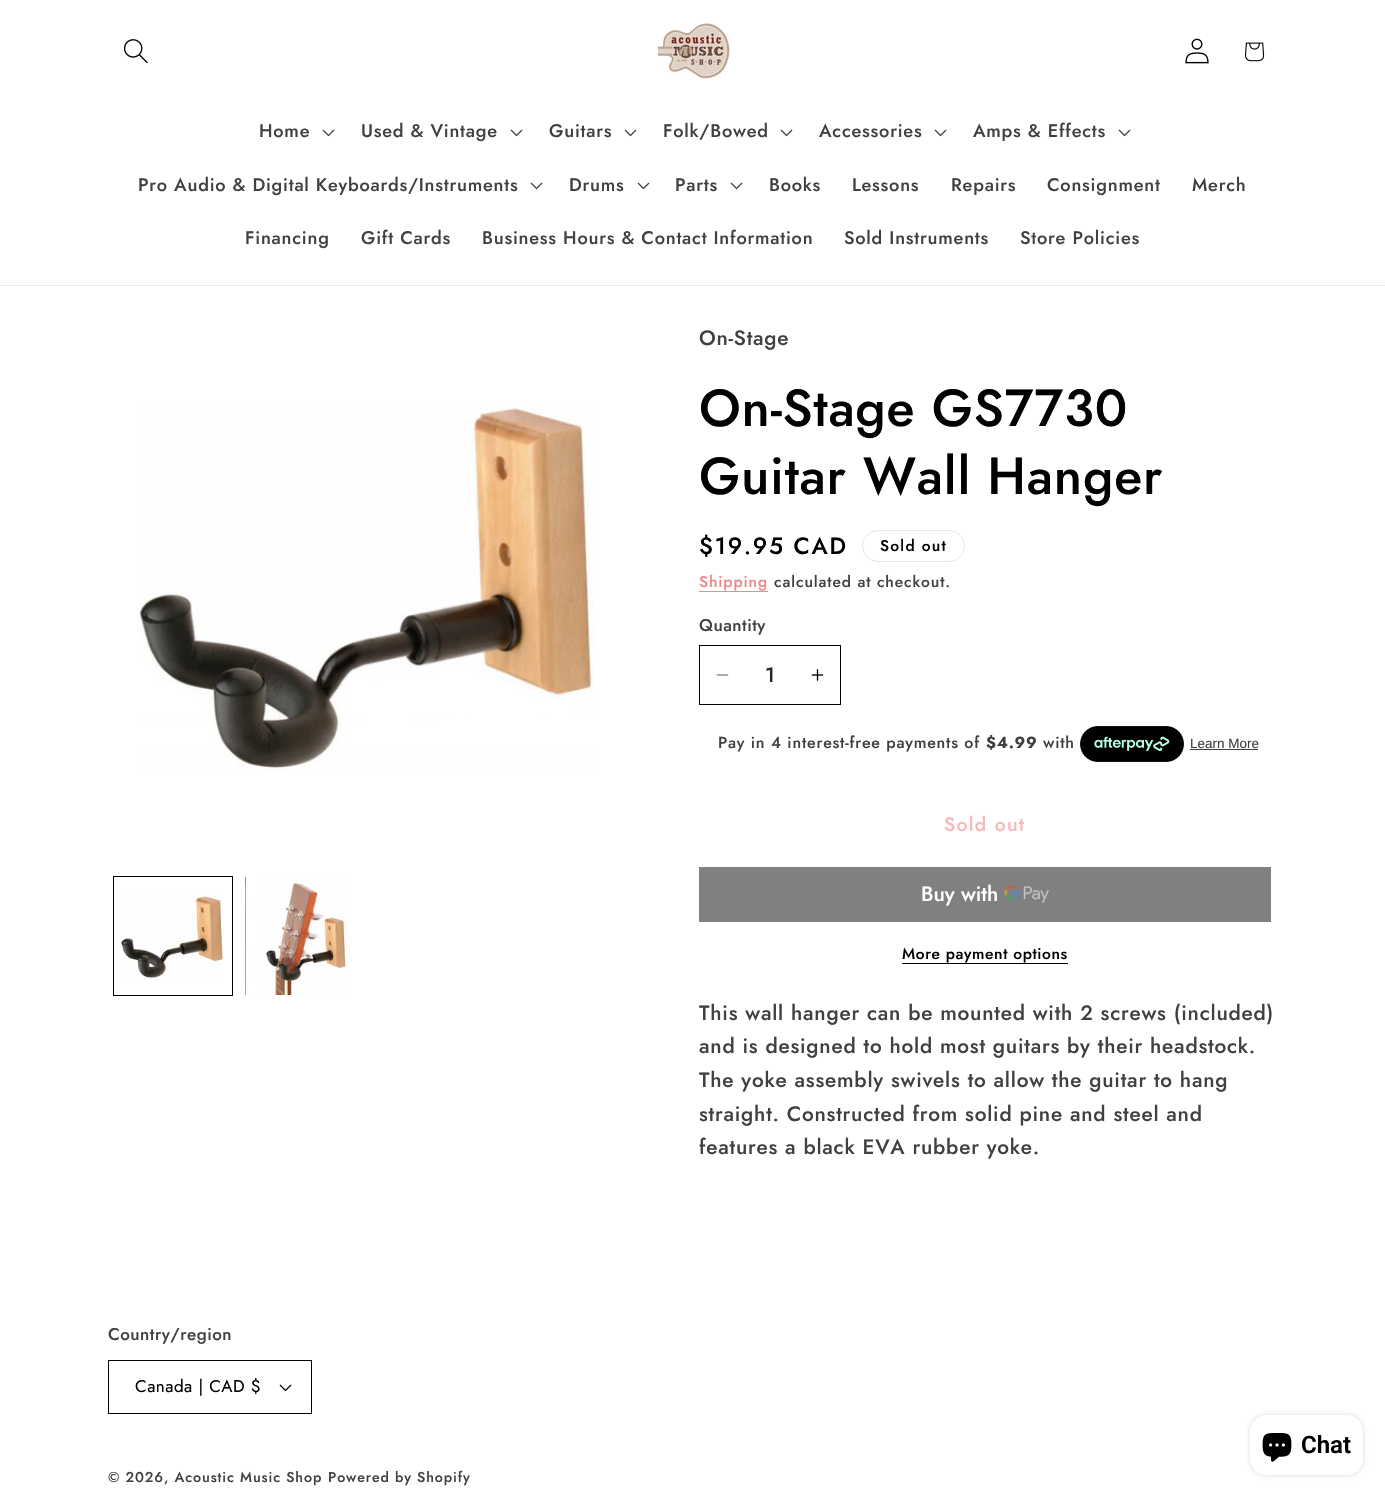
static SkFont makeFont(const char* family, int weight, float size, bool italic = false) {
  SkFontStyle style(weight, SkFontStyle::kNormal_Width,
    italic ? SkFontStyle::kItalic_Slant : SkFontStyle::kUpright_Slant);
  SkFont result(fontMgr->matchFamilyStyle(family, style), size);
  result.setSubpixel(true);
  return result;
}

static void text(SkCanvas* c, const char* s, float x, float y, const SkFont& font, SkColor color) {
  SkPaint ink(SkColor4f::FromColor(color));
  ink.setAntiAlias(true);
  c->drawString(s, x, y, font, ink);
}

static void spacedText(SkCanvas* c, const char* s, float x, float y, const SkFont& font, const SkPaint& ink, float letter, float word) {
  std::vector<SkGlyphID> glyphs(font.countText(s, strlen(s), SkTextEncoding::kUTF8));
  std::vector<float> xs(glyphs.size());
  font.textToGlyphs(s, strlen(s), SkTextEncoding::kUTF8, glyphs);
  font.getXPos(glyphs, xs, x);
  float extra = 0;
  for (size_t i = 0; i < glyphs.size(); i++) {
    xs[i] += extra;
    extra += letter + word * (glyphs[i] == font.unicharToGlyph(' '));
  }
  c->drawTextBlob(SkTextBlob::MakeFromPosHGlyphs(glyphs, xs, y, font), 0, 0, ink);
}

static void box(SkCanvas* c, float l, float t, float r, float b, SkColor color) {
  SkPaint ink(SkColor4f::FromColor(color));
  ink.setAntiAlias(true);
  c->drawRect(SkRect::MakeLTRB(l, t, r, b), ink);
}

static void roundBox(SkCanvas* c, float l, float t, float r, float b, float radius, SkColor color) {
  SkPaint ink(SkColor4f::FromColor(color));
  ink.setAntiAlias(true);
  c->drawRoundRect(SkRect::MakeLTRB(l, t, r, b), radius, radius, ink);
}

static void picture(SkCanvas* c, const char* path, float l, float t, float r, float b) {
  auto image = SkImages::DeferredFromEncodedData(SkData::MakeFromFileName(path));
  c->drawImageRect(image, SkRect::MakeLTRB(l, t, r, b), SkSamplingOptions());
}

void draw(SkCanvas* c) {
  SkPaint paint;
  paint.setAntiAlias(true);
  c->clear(0xffffffff);
  box(c, 0, 285, 1385, 286, 0xffebebeb);
  picture(c, "img_01.png", 123, 39, 148, 64);
  picture(c, "img_02.png", 657, 23, 730, 79);
  picture(c, "img_03.png", 1185, 38, 1209, 64);
  picture(c, "img_04.png", 1245, 42, 1265, 62);
  SkFont face1 = makeFont("Jost", 500, 18.2f);
  paint.setColor(0xff404040);
  spacedText(c, "Home", 259, 137, face1, paint, 0.78f, 0);
  picture(c, "img_05.png", 322, 129, 335, 137);
  spacedText(c, "Used & Vintage", 361, 137, face1, paint, 0.78f, 0);
  picture(c, "img_05.png", 510, 129, 523, 137);
  spacedText(c, "Guitars", 549, 137, face1, paint, 0.78f, 0);
  picture(c, "img_05.png", 624, 129, 637, 137);
  spacedText(c, "Folk/Bowed", 663, 137, face1, paint, 0.78f, 0);
  picture(c, "img_05.png", 780, 129, 793, 137);
  spacedText(c, "Accessories", 819, 137, face1, paint, 0.78f, 0);
  picture(c, "img_05.png", 934, 129, 947, 137);
  spacedText(c, "Amps & Effects", 973, 137, face1, paint, 0.78f, 0);
  picture(c, "img_05.png", 1118, 129, 1131, 137);
  spacedText(c, "Pro Audio & Digital Keyboards/Instruments", 138, 191, face1, paint, 0.78f, 0);
  picture(c, "img_05.png", 530, 182, 543, 190);
  spacedText(c, "Drums", 569, 191, face1, paint, 0.78f, 0);
  picture(c, "img_05.png", 637, 182, 650, 190);
  spacedText(c, "Parts", 675, 191, face1, paint, 0.78f, 0);
  picture(c, "img_05.png", 730, 182, 743, 190);
  spacedText(c, "Books", 769, 191, face1, paint, 0.78f, 0);
  spacedText(c, "Lessons", 852, 191, face1, paint, 0.78f, 0);
  spacedText(c, "Repairs", 951, 191, face1, paint, 0.78f, 0);
  spacedText(c, "Consignment", 1047, 191, face1, paint, 0.78f, 0);
  spacedText(c, "Merch", 1192, 191, face1, paint, 0.78f, 0);
  spacedText(c, "Financing", 245, 244, face1, paint, 0.78f, 0);
  spacedText(c, "Gift Cards", 361, 244, face1, paint, 0.78f, 0);
  spacedText(c, "Business Hours & Contact Information", 482, 244, face1, paint, 0.78f, 0);
  spacedText(c, "Sold Instruments", 844, 244, face1, paint, 0.78f, 0);
  spacedText(c, "Store Policies", 1020, 244, face1, paint, 0.78f, 0);
  picture(c, "img_06.png", 137, 407, 594, 772);
  paint.setStyle(SkPaint::kStroke_Style);
  paint.setStrokeWidth(1);
  paint.setColor(0xff000000);
  c->drawRect(SkRect::MakeLTRB(113.5f, 876.5f, 232.5f, 995.5f), paint);
  picture(c, "img_07.png", 120, 894, 224, 980);
  picture(c, "img_08.png", 245, 877, 349, 995);
  SkFont face2 = makeFont("Jost", 500, 20.8f);
  paint.setStyle(SkPaint::kFill_Style);
  paint.setColor(0xff404040);
  spacedText(c, "On-Stage", 699, 345, face2, paint, 0.78f, 0);
  SkFont face3 = makeFont("Jost", 500, 52);
  paint.setColor(0xff000000);
  spacedText(c, "On-Stage GS7730", 699, 426, face3, paint, 0.78f, 0);
  spacedText(c, "Guitar Wall Hanger", 699, 494, face3, paint, 0.78f, 0);
  SkFont face4 = makeFont("Jost", 500, 23.5f);
  spacedText(c, "$19.95 CAD", 699, 554, face4, paint, 1.75f, 0);
  paint.setStyle(SkPaint::kStroke_Style);
  paint.setColor(0xffe6e6e6);
  c->drawRoundRect(SkRect::MakeLTRB(862.5f, 530.5f, 964.5f, 561.5f), 15.5f, 15.5f, paint);
  SkFont face5 = makeFont("Jost", 500, 15.6f);
  paint.setStyle(SkPaint::kFill_Style);
  paint.setColor(0xff000000);
  spacedText(c, "Sold out", 880, 551, face5, paint, 1.25f, 0);
  paint.setColor(0xfff38787);
  spacedText(c, "Shipping", 699, 587, face5, paint, 0.9f, 0);
  box(c, 699, 591, 768, 592, 0xfff38787);
  paint.setColor(0xff404040);
  spacedText(c, "calculated at checkout.", 774, 587, face5, paint, 0.9f, 0);
  SkFont face6 = makeFont("Jost", 500, 17);
  spacedText(c, "Quantity", 699, 631, face6, paint, 0.5f, 0);
  picture(c, "img_09.png", 716, 674, 729, 676);
  picture(c, "img_10.png", 811, 669, 824, 681);
  paint.setStyle(SkPaint::kStroke_Style);
  paint.setColor(0xff000000);
  c->drawRect(SkRect::MakeLTRB(699.5f, 645.5f, 840.5f, 704.5f), paint);
  text(c, "1", 765, 682, face2, 0xff262626);
  SkFont face7 = makeFont("Jost", 500, 16);
  paint.setStyle(SkPaint::kFill_Style);
  paint.setColor(0xff404040);
  spacedText(c, "Pay in 4 interest-free payments of", 718, 748, face7, paint, 0.78f, 0);
  SkFont face8 = makeFont("Jost", 700, 16);
  spacedText(c, "$4.99", 986, 748, face8, paint, 0.78f, 0);
  spacedText(c, "with", 1043, 748, face7, paint, 0.78f, 0);
  picture(c, "img_11.png", 1080, 726, 1184, 762);
  SkFont face9 = makeFont("Liberation Sans", 400, 13.5f);
  text(c, "Learn More", 1190, 748, face9, 0xff404040);
  box(c, 1190, 749, 1258, 750, 0xff404040);
  SkFont face10 = makeFont("Jost", 500, 19.5f);
  paint.setColor(0xfff8b9b9);
  spacedText(c, "Sold out", 944, 831, face10, paint, 1.25f, 0);
  box(c, 699, 867, 1271, 922, 0xff808080);
  text(c, "Buy with", 921, 901, face2, 0xffffffff);
  picture(c, "img_12.png", 1004, 885, 1049, 903);
  paint.setColor(0xff000000);
  spacedText(c, "More payment options", 902, 959, face5, paint, 0.6f, 0);
  box(c, 902, 963, 1068, 964, 0xff000000);
  paint.setColor(0xff404040);
  spacedText(c, "This wall hanger can be mounted with 2 screws (included)", 699, 1020, face2, paint, 0.78f, 0);
  spacedText(c, "and is designed to hold most guitars by their headstock.", 699, 1053, face2, paint, 0.78f, 0);
  spacedText(c, "The yoke assembly swivels to allow the guitar to hang", 699, 1087, face2, paint, 0.78f, 0);
  spacedText(c, "straight. Constructed from solid pine and steel and", 699, 1121, face2, paint, 0.78f, 0);
  spacedText(c, "features a black EVA rubber yoke.", 699, 1154, face2, paint, 0.78f, 0);
  spacedText(c, "Country/region", 108, 1340, face6, paint, 0.5f, 0);
  picture(c, "img_13.png", 279, 1384, 292, 1392);
  paint.setStyle(SkPaint::kStroke_Style);
  paint.setColor(0xff000000);
  c->drawRect(SkRect::MakeLTRB(108.5f, 1360.5f, 311.5f, 1413.5f), paint);
  SkFont face11 = makeFont("Jost", 400, 17);
  paint.setStyle(SkPaint::kFill_Style);
  spacedText(c, "Canada | CAD $", 135, 1392, face11, paint, 0.5f, 0);
  SkFont face12 = makeFont("Jost", 500, 14.25f);
  paint.setColor(0xff404040);
  spacedText(c, "© 2026, Acoustic Music Shop", 108, 1482, face12, paint, 0.9f, 0);
  spacedText(c, "Powered by Shopify", 328, 1482, face12, paint, 0.9f, 0);
  paint.setColor(0x26000000);
  paint.setMaskFilter(SkMaskFilter::MakeBlur(kNormal_SkBlurStyle, 2.5f));
  c->drawRoundRect(SkRect::MakeLTRB(1250, 1415, 1363, 1475), 16, 16, paint);
  paint.setMaskFilter(nullptr);
  roundBox(c, 1250, 1415, 1363, 1475, 16, 0xffffffff);
  picture(c, "img_14.png", 1262, 1433, 1292, 1462);
  SkFont face13 = makeFont("Roboto", 600, 24);
  text(c, "Chat", 1301, 1453, face13, 0xff000000);
}
